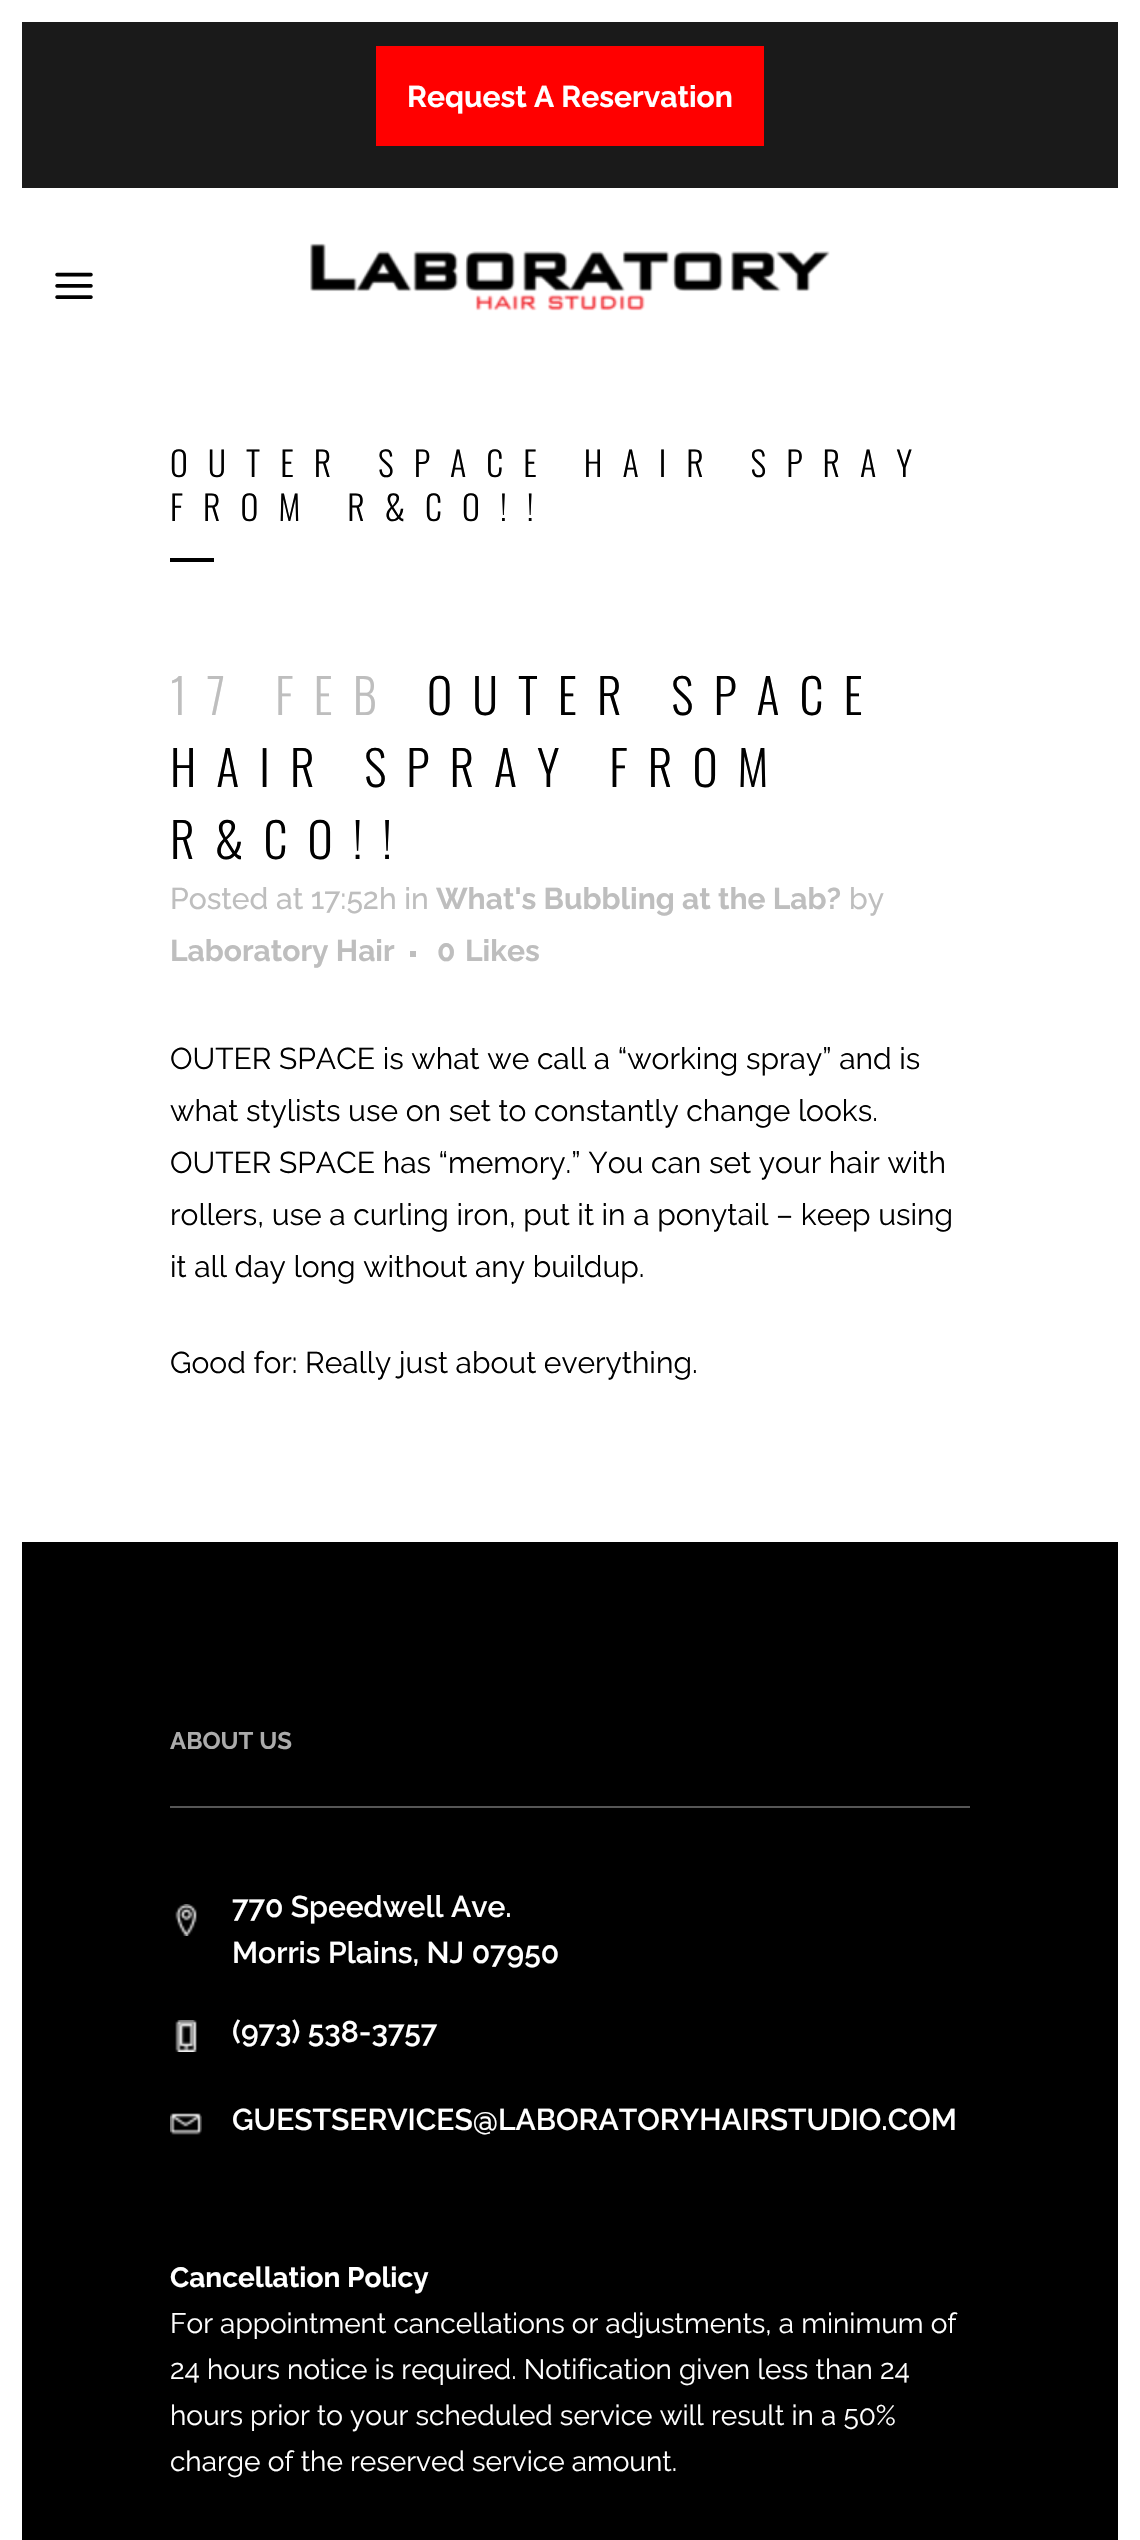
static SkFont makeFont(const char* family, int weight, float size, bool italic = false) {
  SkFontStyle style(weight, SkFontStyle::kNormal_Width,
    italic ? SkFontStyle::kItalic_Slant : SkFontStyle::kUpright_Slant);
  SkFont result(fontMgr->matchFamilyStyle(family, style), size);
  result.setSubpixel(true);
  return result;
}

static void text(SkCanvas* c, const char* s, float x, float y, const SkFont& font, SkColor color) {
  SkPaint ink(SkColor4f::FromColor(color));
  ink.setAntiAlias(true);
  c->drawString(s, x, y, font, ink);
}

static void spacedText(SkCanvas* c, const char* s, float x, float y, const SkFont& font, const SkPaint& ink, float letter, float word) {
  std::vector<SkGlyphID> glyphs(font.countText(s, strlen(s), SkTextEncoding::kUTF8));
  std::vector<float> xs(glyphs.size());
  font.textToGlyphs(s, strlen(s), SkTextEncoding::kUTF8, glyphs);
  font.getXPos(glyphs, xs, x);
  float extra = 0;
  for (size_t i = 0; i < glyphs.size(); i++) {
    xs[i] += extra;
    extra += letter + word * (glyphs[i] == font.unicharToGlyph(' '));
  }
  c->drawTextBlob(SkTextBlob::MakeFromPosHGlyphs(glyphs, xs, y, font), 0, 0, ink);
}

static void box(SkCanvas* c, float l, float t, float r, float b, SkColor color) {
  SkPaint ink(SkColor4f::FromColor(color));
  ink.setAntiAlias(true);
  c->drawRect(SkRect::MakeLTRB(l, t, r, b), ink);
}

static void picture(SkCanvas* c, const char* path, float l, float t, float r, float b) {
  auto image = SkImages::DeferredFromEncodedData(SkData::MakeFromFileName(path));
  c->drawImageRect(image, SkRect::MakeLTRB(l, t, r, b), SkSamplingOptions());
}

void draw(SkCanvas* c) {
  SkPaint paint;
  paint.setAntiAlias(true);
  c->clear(0xffffffff);
  box(c, 22, 22, 1118, 188, 0xff1a1a1a);
  box(c, 376, 46, 764, 146, 0xffff0000);
  SkFont face1 = makeFont("Raleway", 700, 30);
  text(c, "Request A Reservation", 407, 107, face1, 0xffffffff);
  picture(c, "img_01.png", 55, 272, 93, 299);
  picture(c, "img_02.png", 310, 243, 830, 311);
  SkFont face2 = makeFont("Oswald", 300, 34);
  paint.setColor(0xff000000);
  spacedText(c, "OUTER SPACE HAIR SPRAY", 170, 477, face2, paint, 20, 0);
  spacedText(c, "FROM R&CO!!", 170, 521, face2, paint, 20, 0);
  box(c, 170, 558, 214, 562, 0xff000000);
  SkFont face3 = makeFont("Oswald", 300, 48);
  paint.setColor(0xffbebebe);
  spacedText(c, "17 FEB", 170, 715, face3, paint, 20, 0);
  paint.setColor(0xff000000);
  spacedText(c, "OUTER SPACE", 427, 715, face3, paint, 20, 0);
  spacedText(c, "HAIR SPRAY FROM", 170, 787, face3, paint, 20, 0);
  spacedText(c, "R&CO!!", 170, 859, face3, paint, 20, 0);
  SkFont face4 = makeFont("Raleway", 500, 30);
  text(c, "Posted at 17:52h in", 170, 909, face4, 0xffbebebe);
  text(c, "What's Bubbling at the Lab?", 436, 909, face1, 0xffbebebe);
  text(c, "by", 849, 909, face4, 0xffbebebe);
  text(c, "Laboratory Hair", 170, 961, face1, 0xffbebebe);
  box(c, 410, 951, 416, 957, 0xffbebebe);
  text(c, "0", 437, 961, face1, 0xffbebebe);
  text(c, "Likes", 465, 961, face1, 0xffbebebe);
  SkFont face5 = makeFont("Raleway", 400, 30);
  text(c, "OUTER SPACE is what we call a “working spray” and is", 170, 1069, face5, 0xff000000);
  text(c, "what stylists use on set to constantly change looks.", 170, 1121, face5, 0xff000000);
  text(c, "OUTER SPACE has “memory.” You can set your hair with", 170, 1173, face5, 0xff000000);
  text(c, "rollers, use a curling iron, put it in a ponytail – keep using", 170, 1225, face5, 0xff000000);
  text(c, "it all day long without any buildup.", 170, 1277, face5, 0xff000000);
  text(c, "Good for: Really just about everything.", 170, 1373, face5, 0xff000000);
  box(c, 22, 1542, 1118, 2540, 0xff000000);
  SkFont face6 = makeFont("Raleway", 700, 24);
  text(c, "ABOUT US", 170, 1749, face6, 0xffababab);
  box(c, 170, 1806, 970, 1808, 0xff565656);
  picture(c, "img_03.png", 175, 1904, 197, 1936);
  SkFont face7 = makeFont("Raleway", 600, 30);
  text(c, "770 Speedwell Ave.", 232, 1917, face7, 0xffffffff);
  text(c, "Morris Plains, NJ 07950", 232, 1963, face7, 0xffffffff);
  picture(c, "img_04.png", 175, 2020, 197, 2052);
  text(c, "(973) 538-3757", 232, 2042, face7, 0xffffffff);
  picture(c, "img_05.png", 170, 2113, 202, 2135);
  text(c, "GUESTSERVICES@LABORATORYHAIRSTUDIO.COM", 232, 2130, face7, 0xffffffff);
  SkFont face8 = makeFont("Raleway", 700, 28);
  text(c, "Cancellation Policy", 170, 2287, face8, 0xffffffff);
  SkFont face9 = makeFont("Raleway", 400, 28);
  text(c, "For appointment cancellations or adjustments, a minimum of", 170, 2333, face9, 0xffffffff);
  text(c, "24 hours notice is required. Notification given less than 24", 170, 2379, face9, 0xffffffff);
  text(c, "hours prior to your scheduled service will result in a 50%", 170, 2425, face9, 0xffffffff);
  text(c, "charge of the reserved service amount.", 170, 2471, face9, 0xffffffff);
}
